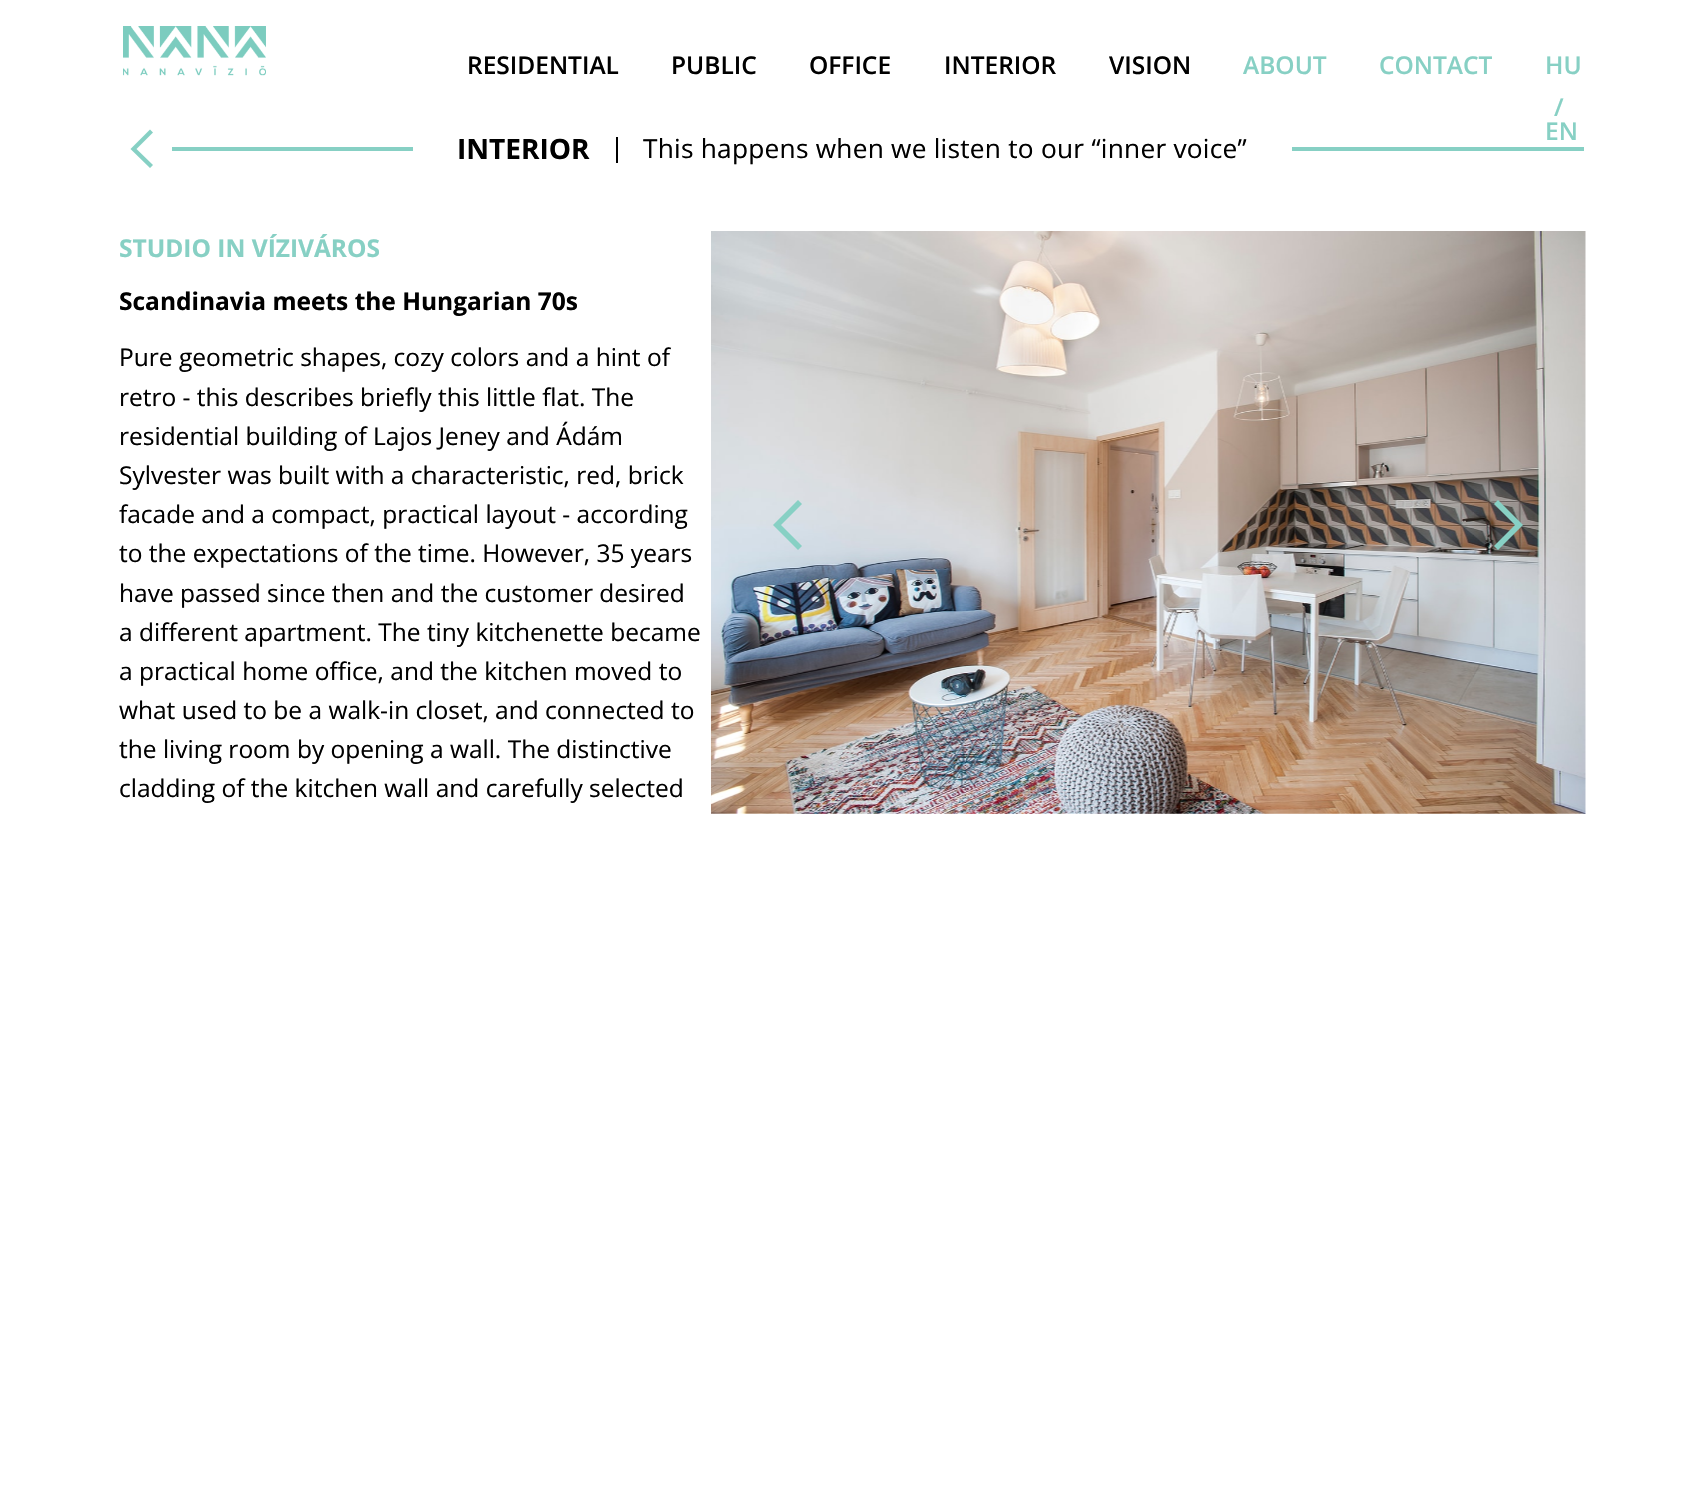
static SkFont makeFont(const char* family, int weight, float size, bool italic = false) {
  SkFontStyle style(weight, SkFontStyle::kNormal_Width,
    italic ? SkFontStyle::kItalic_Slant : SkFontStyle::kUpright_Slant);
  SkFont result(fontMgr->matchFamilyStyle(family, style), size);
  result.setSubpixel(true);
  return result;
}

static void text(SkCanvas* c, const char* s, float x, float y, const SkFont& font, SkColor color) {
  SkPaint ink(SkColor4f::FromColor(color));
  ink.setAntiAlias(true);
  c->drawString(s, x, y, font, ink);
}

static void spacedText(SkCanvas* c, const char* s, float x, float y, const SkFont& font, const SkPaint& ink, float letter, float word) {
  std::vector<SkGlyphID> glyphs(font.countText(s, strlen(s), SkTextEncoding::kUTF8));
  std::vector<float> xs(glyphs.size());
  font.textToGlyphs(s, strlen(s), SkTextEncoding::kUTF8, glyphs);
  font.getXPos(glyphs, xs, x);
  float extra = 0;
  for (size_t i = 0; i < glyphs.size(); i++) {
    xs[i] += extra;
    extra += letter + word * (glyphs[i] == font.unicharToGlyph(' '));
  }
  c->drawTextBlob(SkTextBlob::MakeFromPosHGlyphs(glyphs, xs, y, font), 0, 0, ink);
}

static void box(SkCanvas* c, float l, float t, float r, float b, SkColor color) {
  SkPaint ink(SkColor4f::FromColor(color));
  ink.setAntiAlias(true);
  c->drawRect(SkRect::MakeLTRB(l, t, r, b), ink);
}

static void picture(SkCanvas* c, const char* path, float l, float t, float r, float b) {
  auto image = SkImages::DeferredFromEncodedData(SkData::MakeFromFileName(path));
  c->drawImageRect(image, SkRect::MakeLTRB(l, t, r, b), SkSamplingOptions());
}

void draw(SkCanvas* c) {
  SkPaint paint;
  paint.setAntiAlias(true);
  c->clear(0xffffffff);
  picture(c, "img_01.png", 123, 26, 266, 76);
  SkFont face1 = makeFont("Open Sans", 600, 24.5f);
  text(c, "RESIDENTIAL", 467, 74, face1, 0xff000000);
  text(c, "PUBLIC", 671, 74, face1, 0xff000000);
  text(c, "OFFICE", 809, 74, face1, 0xff000000);
  text(c, "INTERIOR", 944, 74, face1, 0xff000000);
  text(c, "VISION", 1109, 74, face1, 0xff000000);
  text(c, "ABOUT", 1243, 74, face1, 0xff87d0c4);
  text(c, "CONTACT", 1379, 74, face1, 0xff87d0c4);
  text(c, "HU", 1545, 74, face1, 0xff87d0c4);
  text(c, "/", 1554, 116, face1, 0xff87d0c4);
  text(c, "EN", 1545, 140, face1, 0xff87d0c4);
  paint.setColor(0xff86d0c4);
  c->drawPath(SkPathBuilder().moveTo(153, 132.5f).lineTo(150, 129.5f).lineTo(130.5f, 149).lineTo(150, 168).lineTo(153, 165).lineTo(136.5f, 149).close().detach(), paint);
  box(c, 172, 147, 413, 151, 0xff87d0c4);
  SkFont face2 = makeFont("Open Sans", 700, 28);
  text(c, "INTERIOR", 457, 159, face2, 0xff000000);
  box(c, 616, 137, 618, 163, 0xff000000);
  SkFont face3 = makeFont("Open Sans", 400, 26.25f);
  paint.setColor(0xff000000);
  spacedText(c, "This happens when we listen to our “inner voice”", 643, 158, face3, paint, 0.25f, 0);
  box(c, 1292, 147, 1584, 151, 0xff87d0c4);
  SkFont face4 = makeFont("Open Sans", 700, 24.5f);
  text(c, "STUDIO IN VÍZIVÁROS", 119, 257, face4, 0xff87d0c4);
  text(c, "Scandinavia meets the Hungarian 70s", 119, 310, face4, 0xff000000);
  SkFont face5 = makeFont("Open Sans", 400, 24.5f);
  text(c, "Pure geometric shapes, cozy colors and a hint of", 119, 366, face5, 0xff000000);
  text(c, "retro - this describes briefly this little flat. The", 119, 406, face5, 0xff000000);
  text(c, "residential building of Lajos Jeney and Ádám", 119, 445, face5, 0xff000000);
  text(c, "Sylvester was built with a characteristic, red, brick", 119, 484, face5, 0xff000000);
  text(c, "facade and a compact, practical layout - according", 119, 523, face5, 0xff000000);
  text(c, "to the expectations of the time. However, 35 years", 119, 562, face5, 0xff000000);
  text(c, "have passed since then and the customer desired", 119, 602, face5, 0xff000000);
  text(c, "a different apartment. The tiny kitchenette became", 119, 641, face5, 0xff000000);
  text(c, "a practical home office, and the kitchen moved to", 119, 680, face5, 0xff000000);
  text(c, "what used to be a walk-in closet, and connected to", 119, 719, face5, 0xff000000);
  text(c, "the living room by opening a wall. The distinctive", 119, 758, face5, 0xff000000);
  text(c, "cladding of the kitchen wall and carefully selected", 119, 797, face5, 0xff000000);
  picture(c, "img_02.png", 711, 231, 1586, 814);
  paint.setColor(0xff87d0c4);
  c->drawPath(SkPathBuilder().moveTo(802, 504).lineTo(798, 500).lineTo(773, 525).lineTo(798, 550).lineTo(802, 546).lineTo(781, 525).close().detach(), paint);
  c->drawPath(SkPathBuilder().moveTo(1494, 546).lineTo(1498, 550).lineTo(1523, 525).lineTo(1498, 500).lineTo(1494, 504).lineTo(1515, 525).close().detach(), paint);
}
